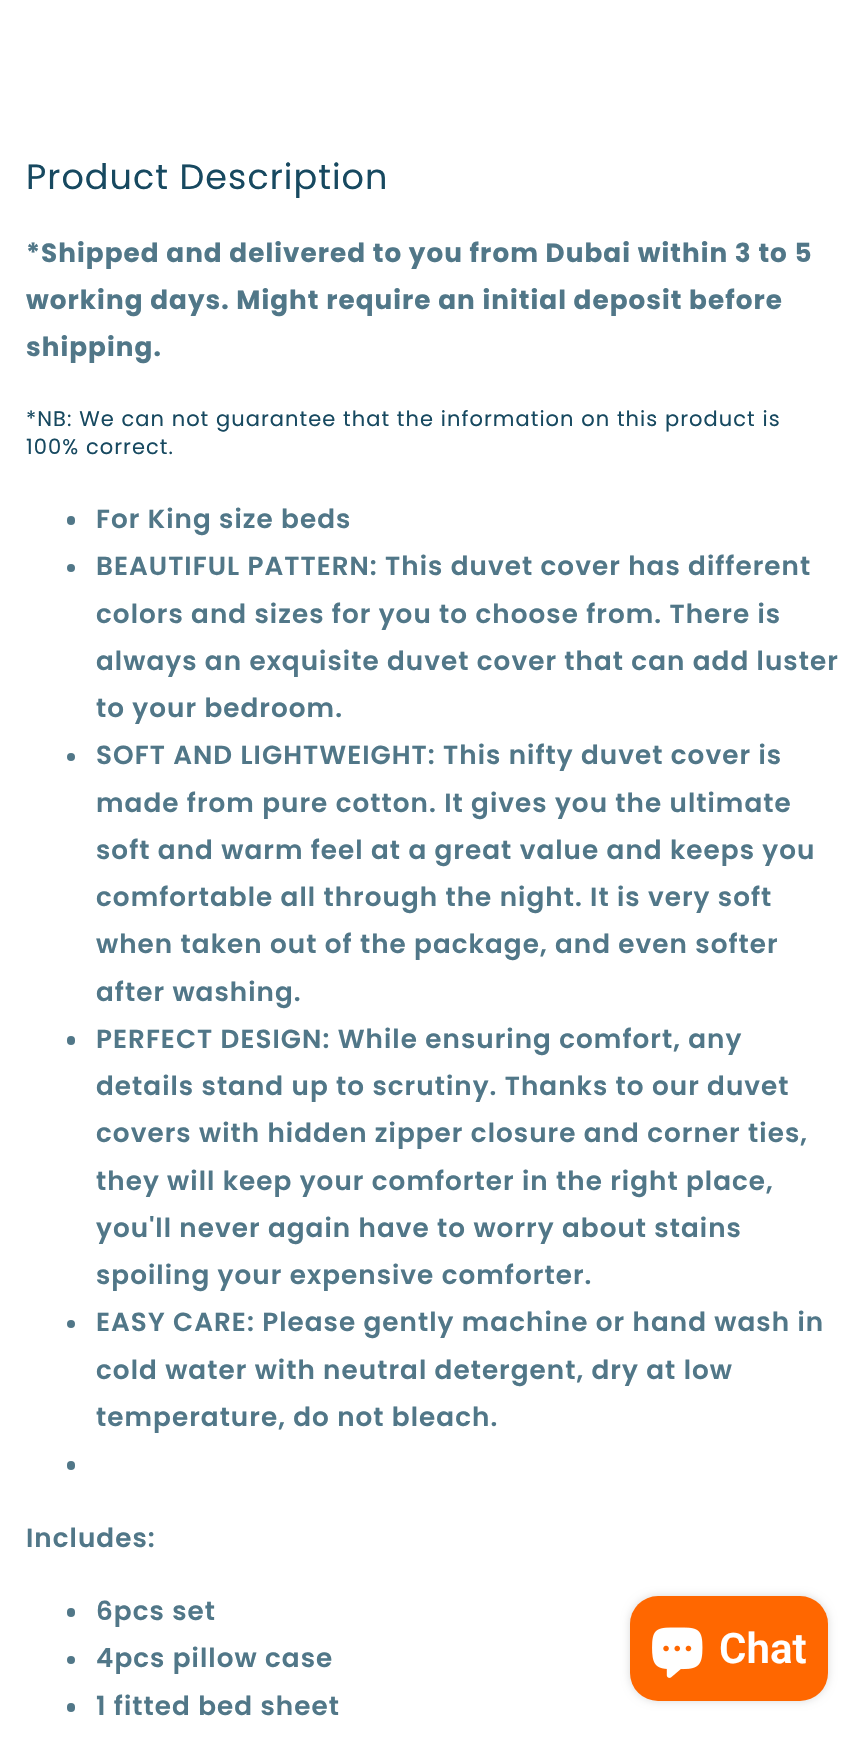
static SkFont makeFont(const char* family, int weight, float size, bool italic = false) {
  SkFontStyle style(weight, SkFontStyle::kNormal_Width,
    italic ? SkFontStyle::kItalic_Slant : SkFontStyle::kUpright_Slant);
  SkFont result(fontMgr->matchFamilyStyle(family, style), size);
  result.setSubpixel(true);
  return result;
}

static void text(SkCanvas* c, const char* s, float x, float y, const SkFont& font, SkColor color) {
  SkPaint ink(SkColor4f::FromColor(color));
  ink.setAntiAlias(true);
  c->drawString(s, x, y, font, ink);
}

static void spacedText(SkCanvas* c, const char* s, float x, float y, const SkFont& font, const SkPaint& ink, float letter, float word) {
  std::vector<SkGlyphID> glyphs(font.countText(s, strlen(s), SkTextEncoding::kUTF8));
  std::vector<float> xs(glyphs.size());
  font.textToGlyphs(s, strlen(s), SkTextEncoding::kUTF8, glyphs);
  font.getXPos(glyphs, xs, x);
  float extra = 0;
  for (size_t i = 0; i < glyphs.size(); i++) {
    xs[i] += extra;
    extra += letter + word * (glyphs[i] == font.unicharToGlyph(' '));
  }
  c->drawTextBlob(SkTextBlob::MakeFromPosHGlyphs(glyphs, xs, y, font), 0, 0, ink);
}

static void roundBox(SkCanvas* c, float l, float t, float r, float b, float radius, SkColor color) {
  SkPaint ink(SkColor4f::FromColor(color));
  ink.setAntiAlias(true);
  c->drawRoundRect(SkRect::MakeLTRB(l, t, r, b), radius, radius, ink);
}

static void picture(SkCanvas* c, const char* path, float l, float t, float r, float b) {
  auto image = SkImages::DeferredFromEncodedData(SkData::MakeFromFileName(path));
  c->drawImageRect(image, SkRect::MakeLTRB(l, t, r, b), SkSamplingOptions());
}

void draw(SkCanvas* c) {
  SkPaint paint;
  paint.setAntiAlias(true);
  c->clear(0xffffffff);
  SkFont face1 = makeFont("Poppins", 400, 35);
  paint.setColor(0xff174960);
  spacedText(c, "Product Description", 26, 189, face1, paint, 1.05f, 0);
  SkFont face2 = makeFont("Poppins", 700, 26.25f);
  paint.setColor(0xff517788);
  spacedText(c, "*Shipped and delivered to you from Dubai within 3 to 5", 26, 262, face2, paint, 1.05f, 0);
  spacedText(c, "working days. Might require an initial deposit before", 26, 309, face2, paint, 1.05f, 0);
  spacedText(c, "shipping.", 26, 356, face2, paint, 1.05f, 0);
  SkFont face3 = makeFont("Poppins", 400, 21);
  paint.setColor(0xff174960);
  spacedText(c, "*NB: We can not guarantee that the information on this product is", 26, 426, face3, paint, 1.05f, 0);
  spacedText(c, "100% correct.", 26, 454, face3, paint, 1.05f, 0);
  roundBox(c, 67, 516, 75, 525, 4, 0xff517788);
  SkFont face4 = makeFont("Poppins", 600, 26.25f);
  paint.setColor(0xff517788);
  spacedText(c, "For King size beds", 96, 528, face4, paint, 1.05f, 0);
  c->drawCircle(71, 568, 4, paint);
  spacedText(c, "BEAUTIFUL PATTERN: This duvet cover has different", 96, 575, face4, paint, 1.05f, 0);
  spacedText(c, "colors and sizes for you to choose from. There is", 96, 623, face4, paint, 1.05f, 0);
  spacedText(c, "always an exquisite duvet cover that can add luster", 96, 670, face4, paint, 1.05f, 0);
  spacedText(c, "to your bedroom.", 96, 717, face4, paint, 1.05f, 0);
  c->drawCircle(71, 757, 4, paint);
  spacedText(c, "SOFT AND LIGHTWEIGHT: This nifty duvet cover is", 96, 764, face4, paint, 1.05f, 0);
  spacedText(c, "made from pure cotton. It gives you the ultimate", 96, 812, face4, paint, 1.05f, 0);
  spacedText(c, "soft and warm feel at a great value and keeps you", 96, 859, face4, paint, 1.05f, 0);
  spacedText(c, "comfortable all through the night. It is very soft", 96, 906, face4, paint, 1.05f, 0);
  spacedText(c, "when taken out of the package, and even softer", 96, 953, face4, paint, 1.05f, 0);
  spacedText(c, "after washing.", 96, 1001, face4, paint, 1.05f, 0);
  roundBox(c, 67, 1036, 75, 1045, 4, 0xff517788);
  spacedText(c, "PERFECT DESIGN: While ensuring comfort, any", 96, 1048, face4, paint, 1.05f, 0);
  spacedText(c, "details stand up to scrutiny. Thanks to our duvet", 96, 1095, face4, paint, 1.05f, 0);
  spacedText(c, "covers with hidden zipper closure and corner ties,", 96, 1142, face4, paint, 1.05f, 0);
  spacedText(c, "they will keep your comforter in the right place,", 96, 1190, face4, paint, 1.05f, 0);
  spacedText(c, "you'll never again have to worry about stains", 96, 1237, face4, paint, 1.05f, 0);
  spacedText(c, "spoiling your expensive comforter.", 96, 1284, face4, paint, 1.05f, 0);
  c->drawCircle(71, 1324, 4, paint);
  spacedText(c, "EASY CARE: Please gently machine or hand wash in", 96, 1331, face4, paint, 1.05f, 0);
  spacedText(c, "cold water with neutral detergent, dry at low", 96, 1379, face4, paint, 1.05f, 0);
  spacedText(c, "temperature, do not bleach.", 96, 1426, face4, paint, 1.05f, 0);
  roundBox(c, 67, 1461, 75, 1470, 4, 0xff517788);
  spacedText(c, "Includes:", 26, 1547, face4, paint, 1.05f, 0);
  roundBox(c, 67, 1608, 75, 1617, 4, 0xff517788);
  spacedText(c, "6pcs set", 96, 1620, face4, paint, 1.05f, 0);
  c->drawCircle(71, 1660, 4, paint);
  spacedText(c, "4pcs pillow case", 96, 1667, face4, paint, 1.05f, 0);
  roundBox(c, 67, 1703, 75, 1712, 4, 0xff517788);
  spacedText(c, "1 fitted bed sheet", 96, 1715, face4, paint, 1.05f, 0);
  paint.setColor(0x26000000);
  paint.setMaskFilter(SkMaskFilter::MakeBlur(kNormal_SkBlurStyle, 4.5f));
  c->drawRoundRect(SkRect::MakeLTRB(630, 1596, 828, 1701), 28, 28, paint);
  paint.setMaskFilter(nullptr);
  roundBox(c, 630, 1596, 828, 1701, 28, 0xffff6700);
  picture(c, "img_01.png", 652, 1627, 703, 1678);
  SkFont face5 = makeFont("Roboto", 600, 42);
  text(c, "Chat", 719, 1663, face5, 0xffffffff);
}
